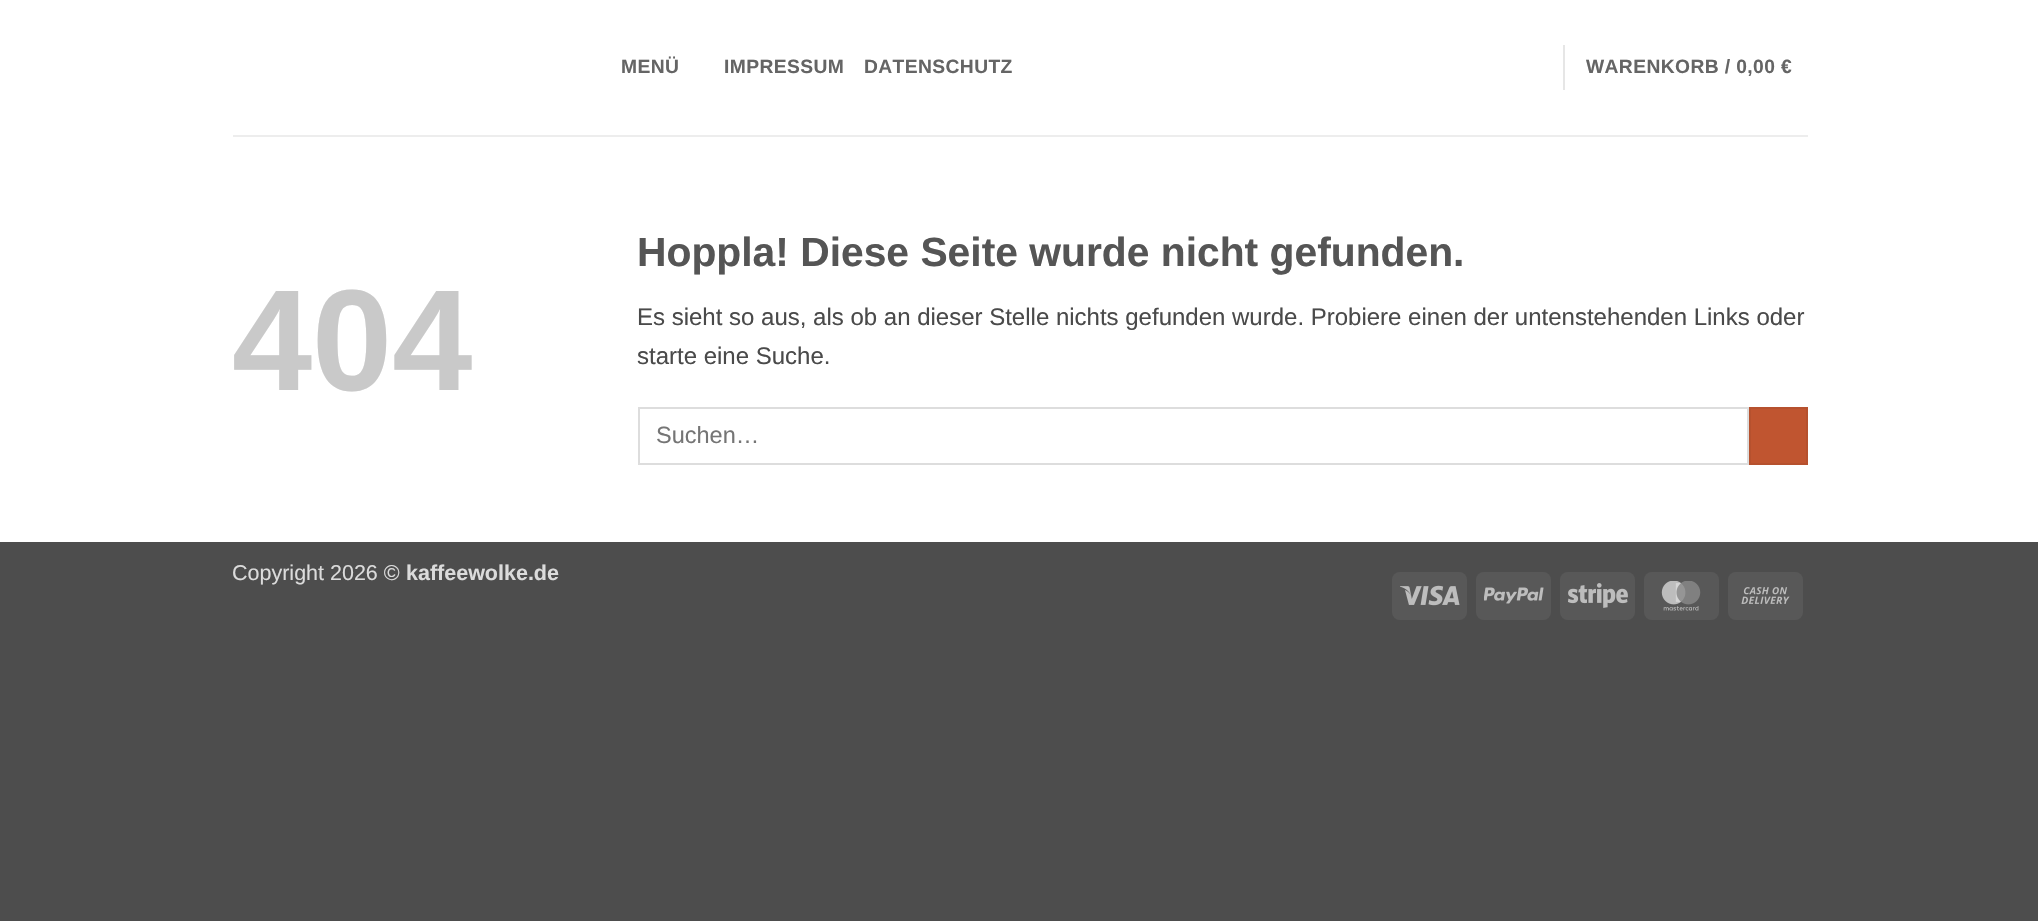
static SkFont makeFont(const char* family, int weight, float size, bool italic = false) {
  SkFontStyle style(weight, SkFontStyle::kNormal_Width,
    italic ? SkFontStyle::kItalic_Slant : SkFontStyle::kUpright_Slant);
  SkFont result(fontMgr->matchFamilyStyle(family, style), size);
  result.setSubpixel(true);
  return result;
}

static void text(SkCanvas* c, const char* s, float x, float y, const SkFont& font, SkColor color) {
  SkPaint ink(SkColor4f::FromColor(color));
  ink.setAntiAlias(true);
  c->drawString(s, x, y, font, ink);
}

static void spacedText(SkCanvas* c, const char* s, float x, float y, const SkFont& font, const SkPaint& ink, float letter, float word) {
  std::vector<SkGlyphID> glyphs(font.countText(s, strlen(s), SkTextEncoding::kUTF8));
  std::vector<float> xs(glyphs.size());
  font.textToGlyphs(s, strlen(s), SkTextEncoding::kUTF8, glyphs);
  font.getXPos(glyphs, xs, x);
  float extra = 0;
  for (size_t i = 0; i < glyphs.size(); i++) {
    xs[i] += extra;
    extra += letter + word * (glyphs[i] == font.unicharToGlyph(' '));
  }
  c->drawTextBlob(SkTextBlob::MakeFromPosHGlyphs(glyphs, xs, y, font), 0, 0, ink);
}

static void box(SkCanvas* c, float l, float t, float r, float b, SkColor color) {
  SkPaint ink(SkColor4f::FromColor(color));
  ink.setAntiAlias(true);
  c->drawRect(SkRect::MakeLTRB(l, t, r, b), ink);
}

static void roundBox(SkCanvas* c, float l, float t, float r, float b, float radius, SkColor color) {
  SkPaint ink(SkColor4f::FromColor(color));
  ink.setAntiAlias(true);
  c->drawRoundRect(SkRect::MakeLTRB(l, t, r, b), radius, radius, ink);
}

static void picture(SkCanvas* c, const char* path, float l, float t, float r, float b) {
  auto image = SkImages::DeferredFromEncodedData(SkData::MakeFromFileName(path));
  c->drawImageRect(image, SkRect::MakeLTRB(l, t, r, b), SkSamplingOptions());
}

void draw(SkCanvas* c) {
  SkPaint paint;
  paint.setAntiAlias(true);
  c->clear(0xff4d4d4d);
  box(c, 0, 0, 2038, 542, 0xffffffff);
  SkFont face1 = makeFont("Liberation Sans", 700, 19.25f);
  paint.setColor(0xff656565);
  spacedText(c, "MENÜ", 621, 73, face1, paint, 0.4f, 0);
  spacedText(c, "IMPRESSUM", 724, 73, face1, paint, 0.4f, 0);
  spacedText(c, "DATENSCHUTZ", 864, 73, face1, paint, 0.4f, 0);
  box(c, 1563, 45, 1565, 90, 0xffe6e6e6);
  spacedText(c, "WARENKORB / 0,00 €", 1586, 73, face1, paint, 0.4f, 0);
  box(c, 233, 135, 1808, 137, 0xffededed);
  SkFont face2 = makeFont("Liberation Sans", 700, 144);
  text(c, "404", 232, 390, face2, 0xffc9c9c9);
  SkFont face3 = makeFont("Liberation Sans", 700, 40.8f);
  text(c, "Hoppla! Diese Seite wurde nicht gefunden.", 637, 266, face3, 0xff555555);
  SkFont face4 = makeFont("Liberation Sans", 400, 24);
  text(c, "Es sieht so aus, als ob an dieser Stelle nichts gefunden wurde. Probiere einen der untenstehenden Links oder", 637, 325, face4, 0xff4a4a4a);
  text(c, "starte eine Suche.", 637, 364, face4, 0xff4a4a4a);
  paint.setStyle(SkPaint::kStroke_Style);
  paint.setStrokeWidth(2);
  paint.setColor(0xffdddddd);
  c->drawRect(SkRect::MakeLTRB(639, 408, 1748, 464), paint);
  SkFont face5 = makeFont("Liberation Sans", 400, 23.5f);
  text(c, "Suchen…", 656, 443, face5, 0xff757575);
  paint.setStyle(SkPaint::kFill_Style);
  paint.setColor(0xffc05530);
  c->drawRect(SkRect::MakeLTRB(1750, 408, 1807, 464), paint);
  paint.setStyle(SkPaint::kStroke_Style);
  paint.setColor(0xffb6512e);
  c->drawRect(SkRect::MakeLTRB(1750, 408, 1807, 464), paint);
  SkFont face6 = makeFont("Liberation Sans", 400, 21.5f);
  text(c, "Copyright 2026 ©", 232, 580, face6, 0xffdbdbdb);
  SkFont face7 = makeFont("Liberation Sans", 700, 21.5f);
  text(c, "kaffeewolke.de", 406, 580, face7, 0xffdbdbdb);
  roundBox(c, 1392, 572, 1467, 620, 8, 0xff585858);
  picture(c, "img_01.png", 1400, 585, 1460, 606);
  roundBox(c, 1476, 572, 1551, 620, 8, 0xff585858);
  picture(c, "img_02.png", 1484, 587, 1544, 604);
  roundBox(c, 1560, 572, 1635, 620, 8, 0xff585858);
  picture(c, "img_03.png", 1568, 583, 1628, 608);
  roundBox(c, 1644, 572, 1719, 620, 8, 0xff585858);
  picture(c, "img_04.png", 1661, 581, 1701, 611);
  roundBox(c, 1728, 572, 1803, 620, 8, 0xff585858);
  picture(c, "img_05.png", 1741, 587, 1790, 604);
}
